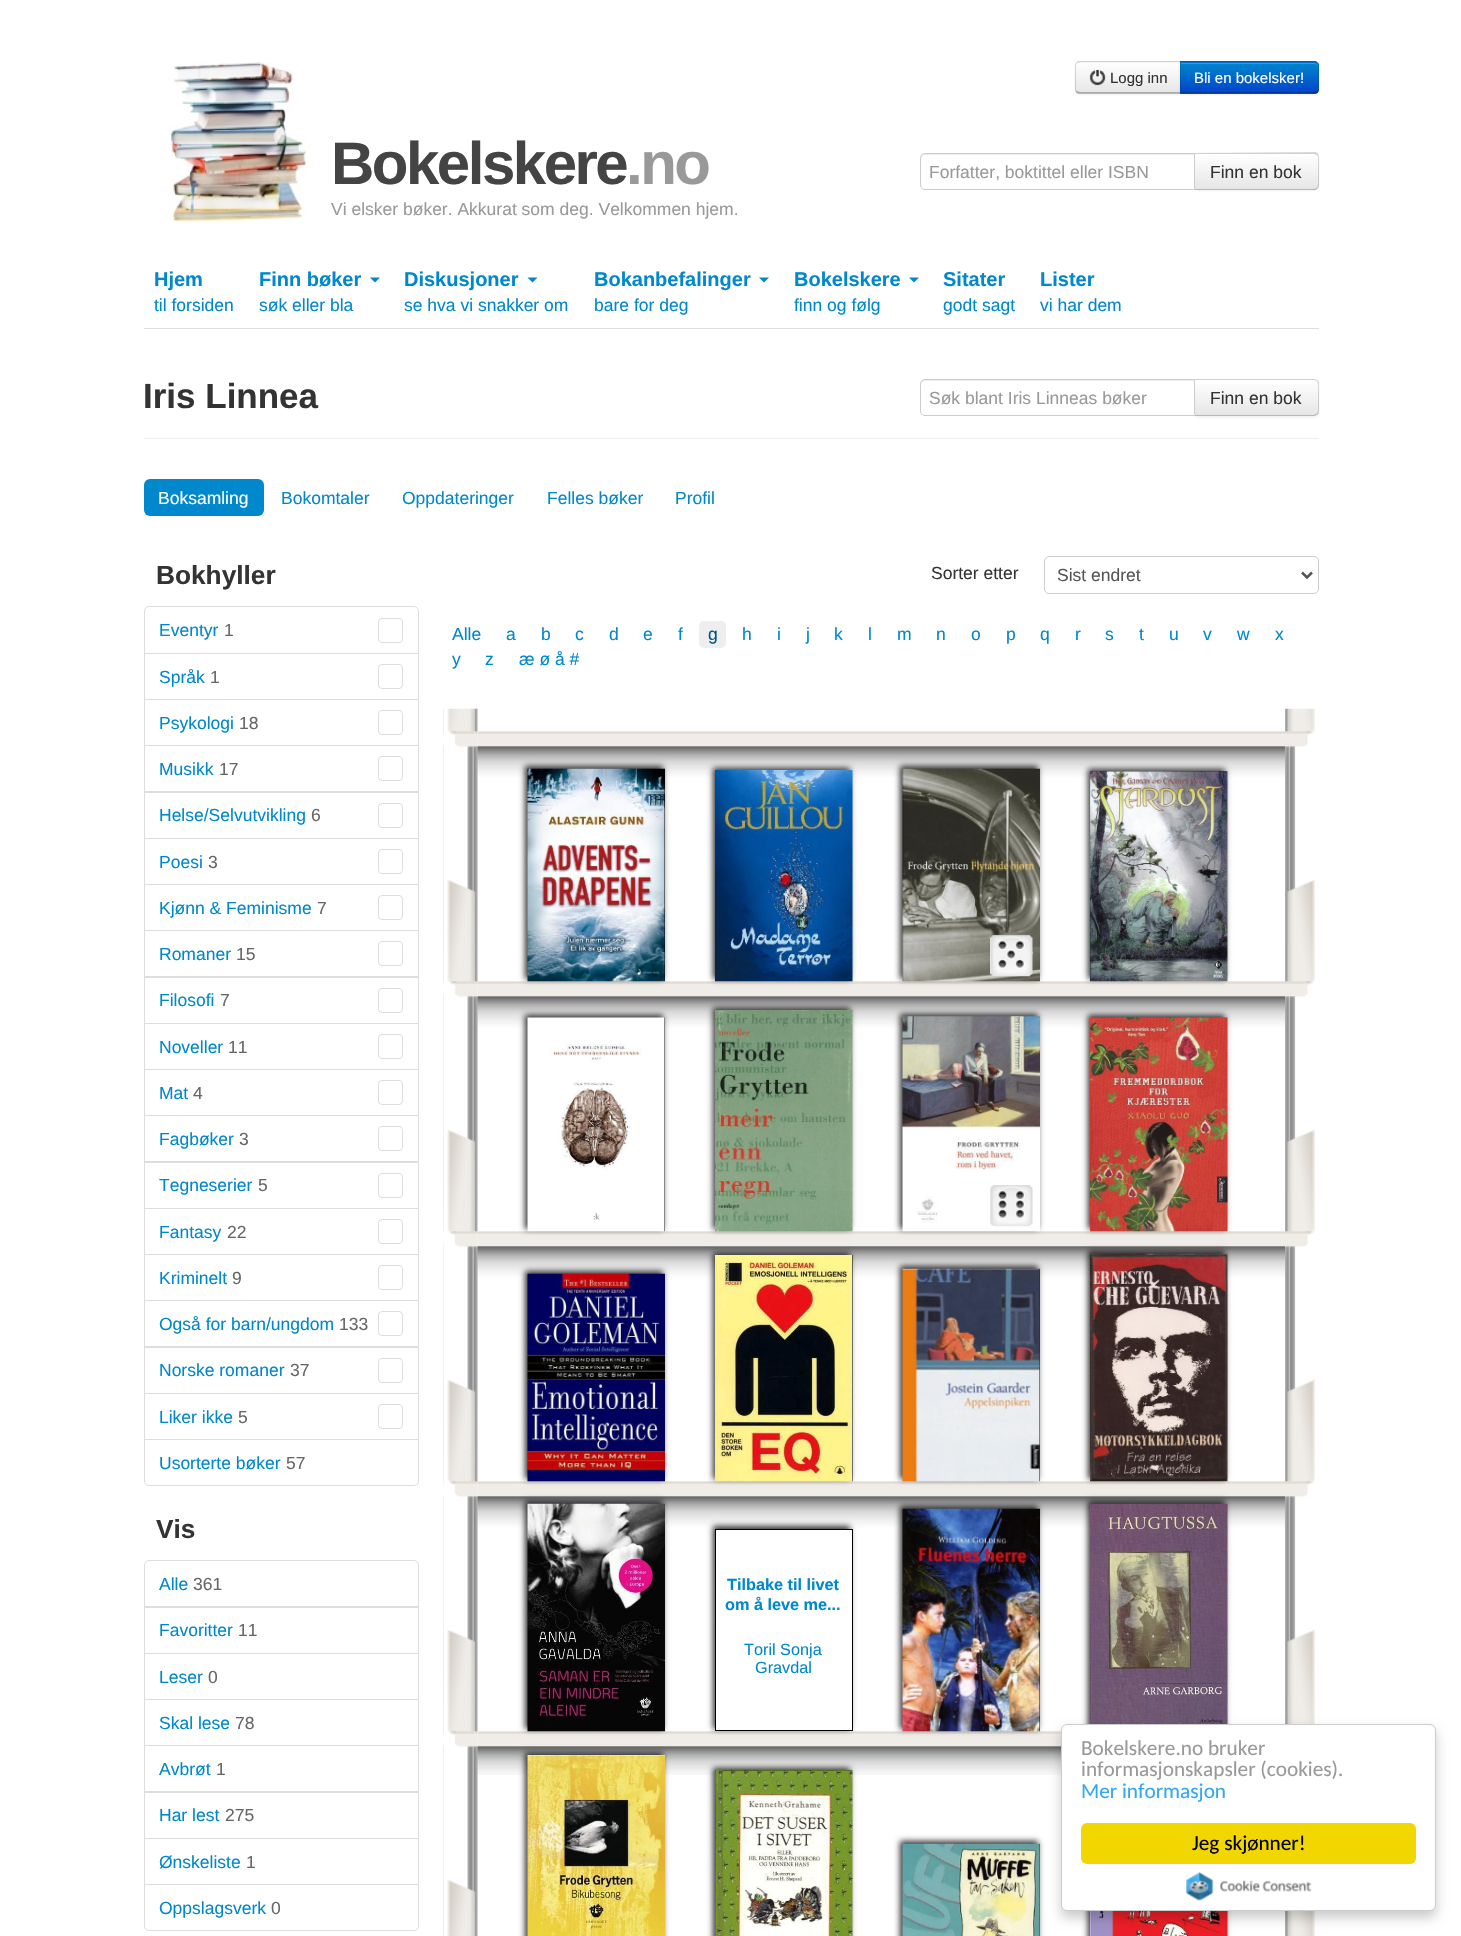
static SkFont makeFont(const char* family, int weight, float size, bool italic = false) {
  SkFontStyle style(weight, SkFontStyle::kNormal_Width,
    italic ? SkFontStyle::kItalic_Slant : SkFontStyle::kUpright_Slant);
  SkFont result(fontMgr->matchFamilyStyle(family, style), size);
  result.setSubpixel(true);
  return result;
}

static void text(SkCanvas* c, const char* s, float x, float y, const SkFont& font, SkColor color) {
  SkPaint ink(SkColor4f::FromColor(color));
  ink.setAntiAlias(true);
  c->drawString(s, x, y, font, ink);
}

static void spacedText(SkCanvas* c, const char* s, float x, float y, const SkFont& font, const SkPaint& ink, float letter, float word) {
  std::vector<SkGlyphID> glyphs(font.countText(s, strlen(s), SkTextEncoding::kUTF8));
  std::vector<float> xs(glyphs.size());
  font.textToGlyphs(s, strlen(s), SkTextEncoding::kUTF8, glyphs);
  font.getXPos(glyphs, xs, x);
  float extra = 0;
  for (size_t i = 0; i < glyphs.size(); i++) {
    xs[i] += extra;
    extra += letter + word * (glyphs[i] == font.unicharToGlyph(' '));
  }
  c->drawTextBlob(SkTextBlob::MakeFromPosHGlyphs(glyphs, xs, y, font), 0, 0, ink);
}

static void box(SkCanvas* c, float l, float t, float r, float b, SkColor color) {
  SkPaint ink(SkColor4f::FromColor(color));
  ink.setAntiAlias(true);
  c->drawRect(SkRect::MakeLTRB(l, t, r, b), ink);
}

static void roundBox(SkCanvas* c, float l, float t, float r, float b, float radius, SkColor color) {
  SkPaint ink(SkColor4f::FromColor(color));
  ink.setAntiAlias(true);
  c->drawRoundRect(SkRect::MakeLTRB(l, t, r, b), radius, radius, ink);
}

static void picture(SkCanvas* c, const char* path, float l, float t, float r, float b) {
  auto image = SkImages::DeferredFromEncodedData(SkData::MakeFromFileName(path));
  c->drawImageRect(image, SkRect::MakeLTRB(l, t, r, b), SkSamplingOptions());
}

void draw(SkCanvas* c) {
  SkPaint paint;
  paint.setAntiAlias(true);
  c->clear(0xffffffff);
  paint.setColor(0x0d000000);
  paint.setMaskFilter(SkMaskFilter::MakeBlur(kNormal_SkBlurStyle, 1));
  c->drawRoundRect(SkRect::MakeLTRB(1075, 63, 1181, 95), 5, 5, paint);
  paint.setMaskFilter(nullptr);
  paint.setColor(0xfff5f5f5);
  c->drawPath(SkPathBuilder().moveTo(1080, 61).lineTo(1181, 61).lineTo(1181, 94).lineTo(1080, 94).cubicTo(1077, 94, 1075, 92, 1075, 89).lineTo(1075, 66).cubicTo(1075, 63, 1077, 61, 1080, 61).close().detach(), paint);
  c->save();
  c->clipPath(SkPathBuilder().moveTo(1080, 61).lineTo(1181, 61).lineTo(1181, 94).lineTo(1080, 94).cubicTo(1077, 94, 1075, 92, 1075, 89).lineTo(1075, 66).cubicTo(1075, 63, 1077, 61, 1080, 61).close().detach(), true);
  {
    const SkColor colors[] = {0xffffffff, 0xffe6e6e6};
    const float stops[] = {0, 1};
    const SkPoint ends[] = {{1128, 62}, {1128, 93}};
    paint.setShader(SkGradientShader::MakeLinear(ends, colors, stops, 2, SkTileMode::kClamp));
    paint.setAlpha(255);
  }
  c->drawRect(SkRect::MakeLTRB(1075, 63, 1180, 93), paint);
  c->restore();
  paint.setShader(nullptr);
  paint.setColor(0x26000000);
  c->drawPath(SkPathBuilder().moveTo(1080, 62).lineTo(1077, 63).lineTo(1076, 63).lineTo(1078, 61).lineTo(1181, 61).lineTo(1180, 62).close().detach(), paint);
  paint.setColor(0x40000000);
  c->drawPath(SkPathBuilder().moveTo(1078, 94).lineTo(1076, 92).lineTo(1077, 91).lineTo(1080, 92).lineTo(1180, 92).lineTo(1181, 94).close().detach(), paint);
  paint.setColor(0x26000000);
  c->drawPath(SkPathBuilder().moveTo(1075, 66).lineTo(1075, 89).cubicTo(1075, 90.5f, 1075.5f, 91.5f, 1076.5f, 92.5f).lineTo(1077.5f, 91.5f).cubicTo(1076.5f, 91, 1076, 90, 1076, 89).lineTo(1076, 66).cubicTo(1076, 65, 1076.5f, 64, 1077, 63.5f).lineTo(1076.5f, 62.5f).cubicTo(1075.5f, 63.5f, 1075, 64.5f, 1075, 66).close().detach(), paint);
  picture(c, "img_01.png", 1089, 69, 1106, 86);
  SkFont face1 = makeFont("Liberation Sans", 400, 15);
  text(c, "Logg inn", 1110, 83, face1, 0xff333333);
  paint.setColor(0x0d000000);
  paint.setMaskFilter(SkMaskFilter::MakeBlur(kNormal_SkBlurStyle, 1));
  c->drawRoundRect(SkRect::MakeLTRB(1180, 63, 1319, 95), 5, 5, paint);
  paint.setMaskFilter(nullptr);
  paint.setColor(0xff006dcc);
  c->drawPath(SkPathBuilder().moveTo(1180, 61).lineTo(1314, 61).cubicTo(1317, 61, 1319, 63, 1319, 66).lineTo(1319, 89).cubicTo(1319, 92, 1317, 94, 1314, 94).lineTo(1180, 94).close().detach(), paint);
  c->save();
  c->clipPath(SkPathBuilder().moveTo(1180, 61).lineTo(1314, 61).cubicTo(1317, 61, 1319, 63, 1319, 66).lineTo(1319, 89).cubicTo(1319, 92, 1317, 94, 1314, 94).lineTo(1180, 94).close().detach(), true);
  {
    const SkColor colors[] = {0xff0088cc, 0xff0044cc};
    const float stops[] = {0, 1};
    const SkPoint ends[] = {{1249, 62}, {1249, 93}};
    paint.setShader(SkGradientShader::MakeLinear(ends, colors, stops, 2, SkTileMode::kClamp));
    paint.setAlpha(255);
  }
  c->drawRect(SkRect::MakeLTRB(1180, 63, 1319, 93), paint);
  c->restore();
  paint.setShader(nullptr);
  paint.setColor(0xff339dd6);
  c->drawPath(SkPathBuilder().moveTo(1181, 64).lineTo(1314, 64).cubicTo(1316, 64, 1318, 65, 1318, 68).lineTo(1318, 67).cubicTo(1318, 65, 1316, 63, 1314, 63).lineTo(1181, 63).close().detach(), paint);
  paint.setColor(0x1a000000);
  c->drawPath(SkPathBuilder().moveTo(1181, 62).lineTo(1180, 61).lineTo(1316, 61).lineTo(1318, 62).lineTo(1317, 63).lineTo(1314, 62).close().detach(), paint);
  c->drawPath(SkPathBuilder().moveTo(1319, 90.5f).lineTo(1317.5f, 92.5f).lineTo(1316.5f, 91.5f).cubicTo(1317.5f, 91, 1318, 90, 1318, 89).lineTo(1318, 66).cubicTo(1318, 65, 1317.5f, 64, 1317, 63).lineTo(1317.5f, 62.5f).lineTo(1319, 64.5f).close().detach(), paint);
  paint.setColor(0x40000000);
  c->drawPath(SkPathBuilder().moveTo(1316, 94).lineTo(1180, 94).lineTo(1182, 92).lineTo(1314, 92).lineTo(1316, 91).lineTo(1318, 93).close().detach(), paint);
  paint.setColor(0x1a000000);
  c->drawPath(SkPathBuilder().moveTo(1180, 94).lineTo(1182, 92).lineTo(1181, 92).lineTo(1181, 62).lineTo(1180, 61).close().detach(), paint);
  text(c, "Bli en bokelsker!", 1194, 83, face1, 0xffffffff);
  picture(c, "img_02.png", 169, 62, 307, 222);
  SkFont face2 = makeFont("Liberation Sans", 700, 60);
  paint.setColor(0xff444444);
  spacedText(c, "Bokelskere", 331, 184, face2, paint, -2.5f, 0);
  paint.setColor(0xff999999);
  spacedText(c, ".no", 626, 184, face2, paint, -2.5f, 0);
  SkFont face3 = makeFont("Liberation Sans", 400, 17.5f);
  text(c, "Vi elsker bøker. Akkurat som deg. Velkommen hjem.", 331, 215, face3, 0xff999999);
  paint.setColor(0x0d000000);
  paint.setMaskFilter(SkMaskFilter::MakeBlur(kNormal_SkBlurStyle, 1));
  c->drawRoundRect(SkRect::MakeLTRB(1194, 154, 1319, 191), 5, 5, paint);
  paint.setMaskFilter(nullptr);
  paint.setColor(0xfff5f5f5);
  c->drawPath(SkPathBuilder().moveTo(1194, 153).lineTo(1314, 153).cubicTo(1317, 153, 1319, 155, 1319, 158).lineTo(1319, 185).cubicTo(1319, 188, 1317, 190, 1314, 190).lineTo(1194, 190).close().detach(), paint);
  c->save();
  c->clipPath(SkPathBuilder().moveTo(1194, 153).lineTo(1314, 153).cubicTo(1317, 153, 1319, 155, 1319, 158).lineTo(1319, 185).cubicTo(1319, 188, 1317, 190, 1314, 190).lineTo(1194, 190).close().detach(), true);
  {
    const SkColor colors[] = {0xffffffff, 0xffe6e6e6};
    const float stops[] = {0, 1};
    const SkPoint ends[] = {{1256, 154}, {1256, 189}};
    paint.setShader(SkGradientShader::MakeLinear(ends, colors, stops, 2, SkTileMode::kClamp));
    paint.setAlpha(255);
  }
  c->drawRect(SkRect::MakeLTRB(1195, 154, 1319, 189), paint);
  c->restore();
  paint.setShader(nullptr);
  paint.setColor(0x26000000);
  c->drawPath(SkPathBuilder().moveTo(1194, 153).lineTo(1316, 152).lineTo(1318, 154).lineTo(1317, 155).lineTo(1314, 154).lineTo(1195, 154).close().detach(), paint);
  c->drawPath(SkPathBuilder().moveTo(1319, 186.5f).lineTo(1317.5f, 188.5f).lineTo(1316.5f, 188).cubicTo(1317.5f, 187, 1318, 186, 1318, 185).lineTo(1318, 158).cubicTo(1318, 156.5f, 1317.5f, 155.5f, 1316.5f, 154.5f).lineTo(1317.5f, 153.5f).lineTo(1319, 156).close().detach(), paint);
  paint.setColor(0x40000000);
  c->drawPath(SkPathBuilder().moveTo(1194, 190).lineTo(1315, 190).lineTo(1317, 189).lineTo(1317, 188).lineTo(1314, 189).lineTo(1195, 189).close().detach(), paint);
  paint.setColor(0xffffffff);
  c->drawPath(SkPathBuilder().moveTo(925, 153).lineTo(1195, 153).lineTo(1195, 190).lineTo(925, 190).cubicTo(922, 190, 920, 188, 920, 185).lineTo(920, 158).cubicTo(920, 155, 922, 153, 925, 153).close().detach(), paint);
  paint.setColor(0xffececec);
  c->drawPath(SkPathBuilder().moveTo(925, 155).lineTo(1194, 155).lineTo(1194, 154).lineTo(925, 154).cubicTo(922, 154, 921, 156, 921, 159).cubicTo(921, 157, 923, 155, 925, 155).close().detach(), paint);
  paint.setStyle(SkPaint::kStroke_Style);
  paint.setStrokeWidth(1);
  paint.setColor(0xffcccccc);
  c->drawPath(SkPathBuilder().moveTo(925, 153.5f).lineTo(1194.5f, 153.5f).lineTo(1194.5f, 189.5f).lineTo(925, 189.5f).cubicTo(922.5f, 189.5f, 920.5f, 187.5f, 920.5f, 185).lineTo(920.5f, 158).cubicTo(920.5f, 155.5f, 922.5f, 153.5f, 925, 153.5f).close().detach(), paint);
  text(c, "Forfatter, boktittel eller ISBN", 929, 178, face3, 0xff999999);
  text(c, "Finn en bok", 1210, 178, face3, 0xff333333);
  box(c, 144, 328, 1319, 329, 0xffdddddd);
  SkFont face4 = makeFont("Liberation Sans", 700, 20);
  text(c, "Hjem", 154, 286, face4, 0xff0088cc);
  text(c, "til forsiden", 154, 311, face3, 0xff0088cc);
  text(c, "Finn bøker", 259, 286, face4, 0xff0088cc);
  paint.setStyle(SkPaint::kFill_Style);
  paint.setColor(0xff0088cc);
  c->drawPath(SkPathBuilder().moveTo(370, 277.5f).lineTo(380, 277.5f).lineTo(375, 282.5f).close().detach(), paint);
  text(c, "søk eller bla", 259, 311, face3, 0xff0088cc);
  text(c, "Diskusjoner", 404, 286, face4, 0xff0088cc);
  c->drawPath(SkPathBuilder().moveTo(527.5f, 277.5f).lineTo(537.5f, 277.5f).lineTo(532.5f, 282.5f).close().detach(), paint);
  text(c, "se hva vi snakker om", 404, 311, face3, 0xff0088cc);
  text(c, "Bokanbefalinger", 594, 286, face4, 0xff0088cc);
  c->drawPath(SkPathBuilder().moveTo(759, 277.5f).lineTo(769, 277.5f).lineTo(764, 282.5f).close().detach(), paint);
  text(c, "bare for deg", 594, 311, face3, 0xff0088cc);
  text(c, "Bokelskere", 794, 286, face4, 0xff0088cc);
  c->drawPath(SkPathBuilder().moveTo(909, 277.5f).lineTo(919, 277.5f).lineTo(914, 282.5f).close().detach(), paint);
  text(c, "finn og følg", 794, 311, face3, 0xff0088cc);
  text(c, "Sitater", 943, 286, face4, 0xff0088cc);
  text(c, "godt sagt", 943, 311, face3, 0xff0088cc);
  text(c, "Lister", 1040, 286, face4, 0xff0088cc);
  text(c, "vi har dem", 1040, 311, face3, 0xff0088cc);
  box(c, 144, 438, 1319, 439, 0xffeeeeee);
  SkFont face5 = makeFont("Liberation Sans", 700, 35);
  text(c, "Iris Linnea", 143, 408, face5, 0xff333333);
  paint.setColor(0x0d000000);
  paint.setMaskFilter(SkMaskFilter::MakeBlur(kNormal_SkBlurStyle, 1));
  c->drawRoundRect(SkRect::MakeLTRB(1194, 380, 1319, 418), 5, 5, paint);
  paint.setMaskFilter(nullptr);
  paint.setColor(0xfff5f5f5);
  c->drawPath(SkPathBuilder().moveTo(1194, 379).lineTo(1314, 379).cubicTo(1317, 379, 1319, 381, 1319, 384).lineTo(1319, 411).cubicTo(1319, 414, 1317, 416, 1314, 416).lineTo(1194, 416).close().detach(), paint);
  c->save();
  c->clipPath(SkPathBuilder().moveTo(1194, 379).lineTo(1314, 379).cubicTo(1317, 379, 1319, 381, 1319, 384).lineTo(1319, 411).cubicTo(1319, 414, 1317, 416, 1314, 416).lineTo(1194, 416).close().detach(), true);
  {
    const SkColor colors[] = {0xffffffff, 0xffe6e6e6};
    const float stops[] = {0, 1};
    const SkPoint ends[] = {{1256, 380}, {1256, 415}};
    paint.setShader(SkGradientShader::MakeLinear(ends, colors, stops, 2, SkTileMode::kClamp));
    paint.setAlpha(255);
  }
  c->drawRect(SkRect::MakeLTRB(1195, 380, 1319, 415), paint);
  c->restore();
  paint.setShader(nullptr);
  paint.setColor(0x26000000);
  c->drawPath(SkPathBuilder().moveTo(1194, 379).lineTo(1195, 380).lineTo(1314, 380).lineTo(1316, 381).lineTo(1317, 380).lineTo(1314, 379).close().detach(), paint);
  c->drawPath(SkPathBuilder().moveTo(1317.5f, 380).lineTo(1319, 382.5f).lineTo(1319, 412.5f).lineTo(1317.5f, 415).lineTo(1316.5f, 414).cubicTo(1317.5f, 413, 1318, 412, 1318, 411).lineTo(1318, 384).cubicTo(1318, 383, 1317.5f, 382, 1316.5f, 381).close().detach(), paint);
  paint.setColor(0x40000000);
  c->drawPath(SkPathBuilder().moveTo(1317, 415).lineTo(1314, 416).lineTo(1194, 416).lineTo(1195, 415).lineTo(1314, 415).lineTo(1316, 414).close().detach(), paint);
  paint.setColor(0xffffffff);
  c->drawPath(SkPathBuilder().moveTo(925, 379).lineTo(1195, 379).lineTo(1195, 416).lineTo(925, 416).cubicTo(922, 416, 920, 414, 920, 411).lineTo(920, 384).cubicTo(920, 381, 922, 379, 925, 379).close().detach(), paint);
  paint.setColor(0xffececec);
  c->drawPath(SkPathBuilder().moveTo(925, 381).lineTo(1194, 381).lineTo(1194, 380).lineTo(925, 380).cubicTo(922, 380, 921, 382, 921, 385).cubicTo(921, 383, 923, 381, 925, 381).close().detach(), paint);
  paint.setStyle(SkPaint::kStroke_Style);
  paint.setColor(0xffcccccc);
  c->drawPath(SkPathBuilder().moveTo(925, 379.5f).lineTo(1194.5f, 379.5f).lineTo(1194.5f, 415.5f).lineTo(925, 415.5f).cubicTo(922.5f, 415.5f, 920.5f, 413.5f, 920.5f, 411).lineTo(920.5f, 384).cubicTo(920.5f, 381.5f, 922.5f, 379.5f, 925, 379.5f).close().detach(), paint);
  text(c, "Søk blant Iris Linneas bøker", 929, 404, face3, 0xff999999);
  text(c, "Finn en bok", 1210, 404, face3, 0xff333333);
  roundBox(c, 144, 479, 264, 516, 6, 0xff0088cc);
  text(c, "Boksamling", 158, 504, face3, 0xffffffff);
  text(c, "Bokomtaler", 281, 504, face3, 0xff0088cc);
  text(c, "Oppdateringer", 402, 504, face3, 0xff0088cc);
  text(c, "Felles bøker", 547, 504, face3, 0xff0088cc);
  text(c, "Profil", 675, 504, face3, 0xff0088cc);
  SkFont face6 = makeFont("Liberation Sans", 700, 26.25f);
  text(c, "Bokhyller", 156, 584, face6, 0xff333333);
  paint.setColor(0xffdddddd);
  c->drawPath(SkPathBuilder().moveTo(149, 606.5f).lineTo(414, 606.5f).cubicTo(416.5f, 606.5f, 418.5f, 608.5f, 418.5f, 611).lineTo(418.5f, 653.5f).lineTo(144.5f, 653.5f).lineTo(144.5f, 611).cubicTo(144.5f, 608.5f, 146.5f, 606.5f, 149, 606.5f).close().detach(), paint);
  text(c, "Eventyr", 159, 636, face3, 0xff0088cc);
  text(c, "1", 224, 636, face3, 0xff666666);
  c->drawRoundRect(SkRect::MakeLTRB(378.5f, 618.5f, 402.5f, 642.5f), 3.5f, 3.5f, paint);
  c->drawRect(SkRect::MakeLTRB(144.5f, 653.5f, 418.5f, 699.5f), paint);
  text(c, "Språk", 159, 683, face3, 0xff0088cc);
  text(c, "1", 210, 683, face3, 0xff666666);
  c->drawRoundRect(SkRect::MakeLTRB(378.5f, 664.5f, 402.5f, 688.5f), 3.5f, 3.5f, paint);
  c->drawRect(SkRect::MakeLTRB(144.5f, 699.5f, 418.5f, 745.5f), paint);
  text(c, "Psykologi", 159, 729, face3, 0xff0088cc);
  text(c, "18", 239, 729, face3, 0xff666666);
  c->drawRoundRect(SkRect::MakeLTRB(378.5f, 710.5f, 402.5f, 734.5f), 3.5f, 3.5f, paint);
  c->drawRect(SkRect::MakeLTRB(144.5f, 745.5f, 418.5f, 792.5f), paint);
  text(c, "Musikk", 159, 775, face3, 0xff0088cc);
  text(c, "17", 219, 775, face3, 0xff666666);
  c->drawRoundRect(SkRect::MakeLTRB(378.5f, 756.5f, 402.5f, 780.5f), 3.5f, 3.5f, paint);
  c->drawRect(SkRect::MakeLTRB(144.5f, 791.5f, 418.5f, 838.5f), paint);
  text(c, "Helse/Selvutvikling", 159, 821, face3, 0xff0088cc);
  text(c, "6", 311, 821, face3, 0xff666666);
  c->drawRoundRect(SkRect::MakeLTRB(378.5f, 803.5f, 402.5f, 827.5f), 3.5f, 3.5f, paint);
  c->drawRect(SkRect::MakeLTRB(144.5f, 838.5f, 418.5f, 884.5f), paint);
  text(c, "Poesi", 159, 868, face3, 0xff0088cc);
  text(c, "3", 208, 868, face3, 0xff666666);
  c->drawRoundRect(SkRect::MakeLTRB(378.5f, 849.5f, 402.5f, 873.5f), 3.5f, 3.5f, paint);
  c->drawRect(SkRect::MakeLTRB(144.5f, 884.5f, 418.5f, 930.5f), paint);
  text(c, "Kjønn & Feminisme", 159, 914, face3, 0xff0088cc);
  text(c, "7", 317, 914, face3, 0xff666666);
  c->drawRoundRect(SkRect::MakeLTRB(378.5f, 895.5f, 402.5f, 919.5f), 3.5f, 3.5f, paint);
  c->drawRect(SkRect::MakeLTRB(144.5f, 930.5f, 418.5f, 977.5f), paint);
  text(c, "Romaner", 159, 960, face3, 0xff0088cc);
  text(c, "15", 236, 960, face3, 0xff666666);
  c->drawRoundRect(SkRect::MakeLTRB(378.5f, 941.5f, 402.5f, 965.5f), 3.5f, 3.5f, paint);
  c->drawRect(SkRect::MakeLTRB(144.5f, 976.5f, 418.5f, 1023.5f), paint);
  text(c, "Filosofi", 159, 1006, face3, 0xff0088cc);
  text(c, "7", 220, 1006, face3, 0xff666666);
  c->drawRoundRect(SkRect::MakeLTRB(378.5f, 988.5f, 402.5f, 1012.5f), 3.5f, 3.5f, paint);
  c->drawRect(SkRect::MakeLTRB(144.5f, 1023.5f, 418.5f, 1069.5f), paint);
  text(c, "Noveller", 159, 1053, face3, 0xff0088cc);
  text(c, "11", 228, 1053, face3, 0xff666666);
  c->drawRoundRect(SkRect::MakeLTRB(378.5f, 1034.5f, 402.5f, 1058.5f), 3.5f, 3.5f, paint);
  c->drawRect(SkRect::MakeLTRB(144.5f, 1069.5f, 418.5f, 1115.5f), paint);
  text(c, "Mat", 159, 1099, face3, 0xff0088cc);
  text(c, "4", 193, 1099, face3, 0xff666666);
  c->drawRoundRect(SkRect::MakeLTRB(378.5f, 1080.5f, 402.5f, 1104.5f), 3.5f, 3.5f, paint);
  c->drawRect(SkRect::MakeLTRB(144.5f, 1115.5f, 418.5f, 1162.5f), paint);
  text(c, "Fagbøker", 159, 1145, face3, 0xff0088cc);
  text(c, "3", 239, 1145, face3, 0xff666666);
  c->drawRoundRect(SkRect::MakeLTRB(378.5f, 1126.5f, 402.5f, 1150.5f), 3.5f, 3.5f, paint);
  c->drawRect(SkRect::MakeLTRB(144.5f, 1161.5f, 418.5f, 1208.5f), paint);
  text(c, "Tegneserier", 159, 1191, face3, 0xff0088cc);
  text(c, "5", 258, 1191, face3, 0xff666666);
  c->drawRoundRect(SkRect::MakeLTRB(378.5f, 1173.5f, 402.5f, 1197.5f), 3.5f, 3.5f, paint);
  c->drawRect(SkRect::MakeLTRB(144.5f, 1208.5f, 418.5f, 1254.5f), paint);
  text(c, "Fantasy", 159, 1238, face3, 0xff0088cc);
  text(c, "22", 227, 1238, face3, 0xff666666);
  c->drawRoundRect(SkRect::MakeLTRB(378.5f, 1219.5f, 402.5f, 1243.5f), 3.5f, 3.5f, paint);
  c->drawRect(SkRect::MakeLTRB(144.5f, 1254.5f, 418.5f, 1300.5f), paint);
  text(c, "Kriminelt", 159, 1284, face3, 0xff0088cc);
  text(c, "9", 232, 1284, face3, 0xff666666);
  c->drawRoundRect(SkRect::MakeLTRB(378.5f, 1265.5f, 402.5f, 1289.5f), 3.5f, 3.5f, paint);
  c->drawRect(SkRect::MakeLTRB(144.5f, 1300.5f, 418.5f, 1347.5f), paint);
  text(c, "Også for barn/ungdom", 159, 1330, face3, 0xff0088cc);
  text(c, "133", 339, 1330, face3, 0xff666666);
  c->drawRoundRect(SkRect::MakeLTRB(378.5f, 1311.5f, 402.5f, 1335.5f), 3.5f, 3.5f, paint);
  c->drawRect(SkRect::MakeLTRB(144.5f, 1346.5f, 418.5f, 1393.5f), paint);
  text(c, "Norske romaner", 159, 1376, face3, 0xff0088cc);
  text(c, "37", 290, 1376, face3, 0xff666666);
  c->drawRoundRect(SkRect::MakeLTRB(378.5f, 1358.5f, 402.5f, 1382.5f), 3.5f, 3.5f, paint);
  c->drawRect(SkRect::MakeLTRB(144.5f, 1393.5f, 418.5f, 1439.5f), paint);
  text(c, "Liker ikke", 159, 1423, face3, 0xff0088cc);
  text(c, "5", 238, 1423, face3, 0xff666666);
  c->drawRoundRect(SkRect::MakeLTRB(378.5f, 1404.5f, 402.5f, 1428.5f), 3.5f, 3.5f, paint);
  c->drawPath(SkPathBuilder().moveTo(144.5f, 1439.5f).lineTo(418.5f, 1439.5f).lineTo(418.5f, 1481).cubicTo(418.5f, 1483.5f, 416.5f, 1485.5f, 414, 1485.5f).lineTo(149, 1485.5f).cubicTo(146.5f, 1485.5f, 144.5f, 1483.5f, 144.5f, 1481).close().detach(), paint);
  text(c, "Usorterte bøker", 159, 1469, face3, 0xff0088cc);
  text(c, "57", 286, 1469, face3, 0xff666666);
  text(c, "Vis", 156, 1538, face6, 0xff333333);
  c->drawPath(SkPathBuilder().moveTo(149, 1560.5f).lineTo(414, 1560.5f).cubicTo(416.5f, 1560.5f, 418.5f, 1562.5f, 418.5f, 1565).lineTo(418.5f, 1607.5f).lineTo(144.5f, 1607.5f).lineTo(144.5f, 1565).cubicTo(144.5f, 1562.5f, 146.5f, 1560.5f, 149, 1560.5f).close().detach(), paint);
  text(c, "Alle", 159, 1590, face3, 0xff0088cc);
  text(c, "361", 193, 1590, face3, 0xff666666);
  c->drawRect(SkRect::MakeLTRB(144.5f, 1606.5f, 418.5f, 1653.5f), paint);
  text(c, "Favoritter", 159, 1636, face3, 0xff0088cc);
  text(c, "11", 238, 1636, face3, 0xff666666);
  c->drawRect(SkRect::MakeLTRB(144.5f, 1653.5f, 418.5f, 1699.5f), paint);
  text(c, "Leser", 159, 1683, face3, 0xff0088cc);
  text(c, "0", 208, 1683, face3, 0xff666666);
  c->drawRect(SkRect::MakeLTRB(144.5f, 1699.5f, 418.5f, 1745.5f), paint);
  text(c, "Skal lese", 159, 1729, face3, 0xff0088cc);
  text(c, "78", 235, 1729, face3, 0xff666666);
  c->drawRect(SkRect::MakeLTRB(144.5f, 1745.5f, 418.5f, 1792.5f), paint);
  text(c, "Avbrøt", 159, 1775, face3, 0xff0088cc);
  text(c, "1", 216, 1775, face3, 0xff666666);
  c->drawRect(SkRect::MakeLTRB(144.5f, 1791.5f, 418.5f, 1838.5f), paint);
  text(c, "Har lest", 159, 1821, face3, 0xff0088cc);
  text(c, "275", 225, 1821, face3, 0xff666666);
  c->drawRect(SkRect::MakeLTRB(144.5f, 1838.5f, 418.5f, 1884.5f), paint);
  text(c, "Ønskeliste", 159, 1868, face3, 0xff0088cc);
  text(c, "1", 246, 1868, face3, 0xff666666);
  c->drawPath(SkPathBuilder().moveTo(144.5f, 1884.5f).lineTo(418.5f, 1884.5f).lineTo(418.5f, 1926).cubicTo(418.5f, 1928.5f, 416.5f, 1930.5f, 414, 1930.5f).lineTo(149, 1930.5f).cubicTo(146.5f, 1930.5f, 144.5f, 1928.5f, 144.5f, 1926).close().detach(), paint);
  text(c, "Oppslagsverk", 159, 1914, face3, 0xff0088cc);
  text(c, "0", 271, 1914, face3, 0xff666666);
  text(c, "Sorter etter", 931, 579, face3, 0xff333333);
  paint.setColor(0xffcccccc);
  c->drawRoundRect(SkRect::MakeLTRB(1044.5f, 556.5f, 1318.5f, 593.5f), 4.5f, 4.5f, paint);
  paint.setStrokeWidth(2.5f);
  paint.setColor(0xff555555);
  c->drawPath(SkPathBuilder().moveTo(1302, 572.5f).lineTo(1307, 577.5f).lineTo(1312, 572.5f).detach(), paint);
  text(c, "Sist endret", 1057, 581, face3, 0xff555555);
  text(c, "Alle", 452, 640, face3, 0xff0088cc);
  text(c, "a", 506, 640, face3, 0xff0088cc);
  text(c, "b", 541, 640, face3, 0xff0088cc);
  text(c, "c", 575, 640, face3, 0xff0088cc);
  text(c, "d", 609, 640, face3, 0xff0088cc);
  text(c, "e", 643, 640, face3, 0xff0088cc);
  text(c, "f", 678, 640, face3, 0xff0088cc);
  roundBox(c, 699, 621, 726, 648, 5, 0xffeeeeee);
  text(c, "g", 708, 640, face3, 0xff005580);
  text(c, "h", 742, 640, face3, 0xff0088cc);
  text(c, "i", 777, 640, face3, 0xff0088cc);
  text(c, "j", 806, 640, face3, 0xff0088cc);
  text(c, "k", 834, 640, face3, 0xff0088cc);
  text(c, "l", 868, 640, face3, 0xff0088cc);
  text(c, "m", 897, 640, face3, 0xff0088cc);
  text(c, "n", 936, 640, face3, 0xff0088cc);
  text(c, "o", 971, 640, face3, 0xff0088cc);
  text(c, "p", 1006, 640, face3, 0xff0088cc);
  text(c, "q", 1040, 640, face3, 0xff0088cc);
  text(c, "r", 1075, 640, face3, 0xff0088cc);
  text(c, "s", 1105, 640, face3, 0xff0088cc);
  text(c, "t", 1139, 640, face3, 0xff0088cc);
  text(c, "u", 1169, 640, face3, 0xff0088cc);
  text(c, "v", 1203, 640, face3, 0xff0088cc);
  text(c, "w", 1237, 640, face3, 0xff0088cc);
  text(c, "x", 1275, 640, face3, 0xff0088cc);
  text(c, "y", 452, 665, face3, 0xff0088cc);
  text(c, "z", 485, 665, face3, 0xff0088cc);
  text(c, "æ ø å #", 519, 665, face3, 0xff0088cc);
  picture(c, "img_03.png", 443, 708, 478, 1936);
  picture(c, "img_04.png", 1285, 708, 1315, 1936);
  picture(c, "img_05.png", 477, 731, 1285, 1775);
  paint.setStyle(SkPaint::kFill_Style);
  paint.setColor(0xcc000000);
  paint.setMaskFilter(SkMaskFilter::MakeBlur(kNormal_SkBlurStyle, 3));
  c->drawRect(SkRect::MakeLTRB(525, 766, 663, 979), paint);
  paint.setMaskFilter(nullptr);
  picture(c, "img_06.png", 527, 768, 665, 982);
  paint.setMaskFilter(SkMaskFilter::MakeBlur(kNormal_SkBlurStyle, 3));
  c->drawRect(SkRect::MakeLTRB(713, 768, 850, 979), paint);
  paint.setMaskFilter(nullptr);
  picture(c, "img_07.png", 715, 770, 853, 982);
  paint.setMaskFilter(SkMaskFilter::MakeBlur(kNormal_SkBlurStyle, 3));
  c->drawRect(SkRect::MakeLTRB(900, 766, 1038, 979), paint);
  paint.setMaskFilter(nullptr);
  picture(c, "img_08.png", 902, 768, 1040, 982);
  picture(c, "img_09.png", 990, 934, 1033, 977);
  paint.setMaskFilter(SkMaskFilter::MakeBlur(kNormal_SkBlurStyle, 3));
  c->drawRect(SkRect::MakeLTRB(1088, 769, 1225, 979), paint);
  paint.setMaskFilter(nullptr);
  picture(c, "img_10.png", 1090, 771, 1228, 982);
  paint.setMaskFilter(SkMaskFilter::MakeBlur(kNormal_SkBlurStyle, 3));
  c->drawRect(SkRect::MakeLTRB(525, 1015, 663, 1229), paint);
  paint.setMaskFilter(nullptr);
  picture(c, "img_11.png", 527, 1017, 665, 1232);
  paint.setMaskFilter(SkMaskFilter::MakeBlur(kNormal_SkBlurStyle, 3));
  c->drawRect(SkRect::MakeLTRB(713, 1008, 850, 1229), paint);
  paint.setMaskFilter(nullptr);
  picture(c, "img_12.png", 715, 1010, 853, 1232);
  paint.setMaskFilter(SkMaskFilter::MakeBlur(kNormal_SkBlurStyle, 3));
  c->drawRect(SkRect::MakeLTRB(900, 1014, 1038, 1229), paint);
  paint.setMaskFilter(nullptr);
  picture(c, "img_13.png", 902, 1016, 1040, 1232);
  picture(c, "img_14.png", 990, 1185, 1033, 1227);
  paint.setMaskFilter(SkMaskFilter::MakeBlur(kNormal_SkBlurStyle, 3));
  c->drawRect(SkRect::MakeLTRB(1088, 1015, 1225, 1229), paint);
  paint.setMaskFilter(nullptr);
  picture(c, "img_15.png", 1090, 1017, 1228, 1232);
  paint.setMaskFilter(SkMaskFilter::MakeBlur(kNormal_SkBlurStyle, 3));
  c->drawRect(SkRect::MakeLTRB(525, 1271, 663, 1479), paint);
  paint.setMaskFilter(nullptr);
  picture(c, "img_16.png", 527, 1273, 665, 1482);
  paint.setMaskFilter(SkMaskFilter::MakeBlur(kNormal_SkBlurStyle, 3));
  c->drawRect(SkRect::MakeLTRB(713, 1253, 850, 1479), paint);
  paint.setMaskFilter(nullptr);
  picture(c, "img_17.png", 715, 1255, 853, 1482);
  paint.setMaskFilter(SkMaskFilter::MakeBlur(kNormal_SkBlurStyle, 3));
  c->drawRect(SkRect::MakeLTRB(900, 1266, 1038, 1479), paint);
  paint.setMaskFilter(nullptr);
  picture(c, "img_18.png", 902, 1268, 1040, 1482);
  paint.setMaskFilter(SkMaskFilter::MakeBlur(kNormal_SkBlurStyle, 3));
  c->drawRect(SkRect::MakeLTRB(1088, 1251, 1225, 1479), paint);
  paint.setMaskFilter(nullptr);
  picture(c, "img_19.png", 1090, 1253, 1228, 1482);
  paint.setMaskFilter(SkMaskFilter::MakeBlur(kNormal_SkBlurStyle, 3));
  c->drawRect(SkRect::MakeLTRB(525, 1501, 663, 1729), paint);
  paint.setMaskFilter(nullptr);
  picture(c, "img_20.png", 527, 1503, 665, 1732);
  c->save();
  c->clipPath(SkPathBuilder(SkPathFillType::kEvenOdd).moveTo(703, 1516).lineTo(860, 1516).lineTo(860, 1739).lineTo(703, 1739).close().moveTo(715, 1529).lineTo(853, 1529).lineTo(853, 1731).lineTo(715, 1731).close().detach(), true);
  paint.setMaskFilter(SkMaskFilter::MakeBlur(kNormal_SkBlurStyle, 3));
  c->drawRect(SkRect::MakeLTRB(713, 1526, 850, 1729), paint);
  paint.setMaskFilter(nullptr);
  c->restore();
  paint.setStyle(SkPaint::kStroke_Style);
  paint.setStrokeWidth(1);
  paint.setColor(0xff000000);
  c->drawRect(SkRect::MakeLTRB(715.5f, 1529.5f, 852.5f, 1730.5f), paint);
  SkFont face7 = makeFont("Liberation Sans", 700, 16.25f);
  text(c, "Tilbake til livet", 727, 1590, face7, 0xff0088cc);
  text(c, "om å leve me...", 725, 1610, face7, 0xff0088cc);
  SkFont face8 = makeFont("Liberation Sans", 400, 16.25f);
  text(c, "Toril Sonja", 744, 1655, face8, 0xff0088cc);
  text(c, "Gravdal", 755, 1673, face8, 0xff0088cc);
  paint.setStyle(SkPaint::kFill_Style);
  paint.setColor(0xcc000000);
  paint.setMaskFilter(SkMaskFilter::MakeBlur(kNormal_SkBlurStyle, 3));
  c->drawRect(SkRect::MakeLTRB(900, 1506, 1038, 1729), paint);
  paint.setMaskFilter(nullptr);
  picture(c, "img_21.png", 902, 1508, 1040, 1732);
  paint.setMaskFilter(SkMaskFilter::MakeBlur(kNormal_SkBlurStyle, 3));
  c->drawRect(SkRect::MakeLTRB(1088, 1501, 1225, 1729), paint);
  paint.setMaskFilter(nullptr);
  picture(c, "img_22.png", 1090, 1503, 1228, 1724);
  paint.setMaskFilter(SkMaskFilter::MakeBlur(kNormal_SkBlurStyle, 3));
  c->drawRect(SkRect::MakeLTRB(525, 1753, 663, 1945), paint);
  paint.setMaskFilter(nullptr);
  picture(c, "img_23.png", 527, 1755, 665, 1936);
  paint.setMaskFilter(SkMaskFilter::MakeBlur(kNormal_SkBlurStyle, 3));
  c->drawRect(SkRect::MakeLTRB(713, 1768, 850, 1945), paint);
  paint.setMaskFilter(nullptr);
  picture(c, "img_24.png", 715, 1770, 853, 1936);
  paint.setMaskFilter(SkMaskFilter::MakeBlur(kNormal_SkBlurStyle, 3));
  c->drawRect(SkRect::MakeLTRB(900, 1841, 1038, 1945), paint);
  paint.setMaskFilter(nullptr);
  picture(c, "img_25.png", 902, 1843, 1040, 1936);
  paint.setMaskFilter(SkMaskFilter::MakeBlur(kNormal_SkBlurStyle, 3));
  c->drawRect(SkRect::MakeLTRB(1088, 1840, 1225, 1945), paint);
  paint.setMaskFilter(nullptr);
  picture(c, "img_26.png", 1090, 1911, 1228, 1936);
  paint.setColor(0x33000000);
  paint.setMaskFilter(SkMaskFilter::MakeBlur(kNormal_SkBlurStyle, 6));
  c->drawRoundRect(SkRect::MakeLTRB(1061, 1730, 1436, 1918), 6, 6, paint);
  paint.setMaskFilter(nullptr);
  paint.setColor(0xffffffff);
  c->drawRoundRect(SkRect::MakeLTRB(1061.5f, 1724.5f, 1435.5f, 1910.5f), 5.5f, 5.5f, paint);
  paint.setStyle(SkPaint::kStroke_Style);
  paint.setColor(0xffcccccc);
  c->drawRoundRect(SkRect::MakeLTRB(1061.5f, 1724.5f, 1435.5f, 1910.5f), 5.5f, 5.5f, paint);
  SkFont face9 = makeFont("Carlito", 400, 21.25f);
  text(c, "Bokelskere.no bruker", 1081, 1755, face9, 0xff999999);
  text(c, "informasjonskapsler (cookies).", 1081, 1776, face9, 0xff999999);
  text(c, "Mer informasjon", 1081, 1798, face9, 0xff31a8f0);
  roundBox(c, 1081, 1823, 1416, 1864, 6, 0xfff1d600);
  text(c, "Jeg skjønner!", 1192, 1850, face9, 0xff000000);
  picture(c, "img_27.png", 1186, 1872, 1312, 1901);
}
